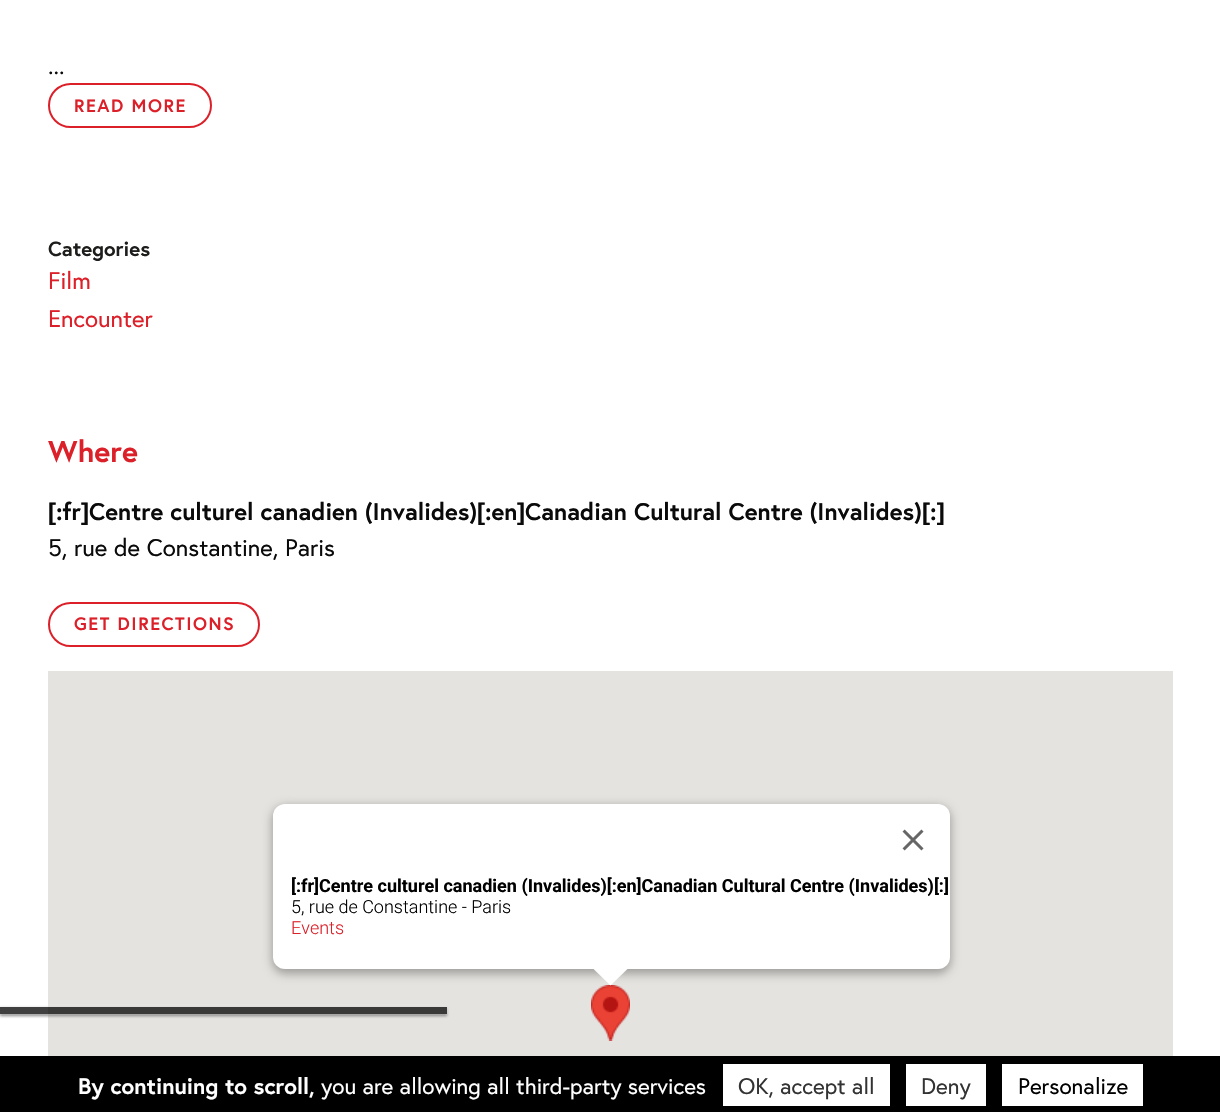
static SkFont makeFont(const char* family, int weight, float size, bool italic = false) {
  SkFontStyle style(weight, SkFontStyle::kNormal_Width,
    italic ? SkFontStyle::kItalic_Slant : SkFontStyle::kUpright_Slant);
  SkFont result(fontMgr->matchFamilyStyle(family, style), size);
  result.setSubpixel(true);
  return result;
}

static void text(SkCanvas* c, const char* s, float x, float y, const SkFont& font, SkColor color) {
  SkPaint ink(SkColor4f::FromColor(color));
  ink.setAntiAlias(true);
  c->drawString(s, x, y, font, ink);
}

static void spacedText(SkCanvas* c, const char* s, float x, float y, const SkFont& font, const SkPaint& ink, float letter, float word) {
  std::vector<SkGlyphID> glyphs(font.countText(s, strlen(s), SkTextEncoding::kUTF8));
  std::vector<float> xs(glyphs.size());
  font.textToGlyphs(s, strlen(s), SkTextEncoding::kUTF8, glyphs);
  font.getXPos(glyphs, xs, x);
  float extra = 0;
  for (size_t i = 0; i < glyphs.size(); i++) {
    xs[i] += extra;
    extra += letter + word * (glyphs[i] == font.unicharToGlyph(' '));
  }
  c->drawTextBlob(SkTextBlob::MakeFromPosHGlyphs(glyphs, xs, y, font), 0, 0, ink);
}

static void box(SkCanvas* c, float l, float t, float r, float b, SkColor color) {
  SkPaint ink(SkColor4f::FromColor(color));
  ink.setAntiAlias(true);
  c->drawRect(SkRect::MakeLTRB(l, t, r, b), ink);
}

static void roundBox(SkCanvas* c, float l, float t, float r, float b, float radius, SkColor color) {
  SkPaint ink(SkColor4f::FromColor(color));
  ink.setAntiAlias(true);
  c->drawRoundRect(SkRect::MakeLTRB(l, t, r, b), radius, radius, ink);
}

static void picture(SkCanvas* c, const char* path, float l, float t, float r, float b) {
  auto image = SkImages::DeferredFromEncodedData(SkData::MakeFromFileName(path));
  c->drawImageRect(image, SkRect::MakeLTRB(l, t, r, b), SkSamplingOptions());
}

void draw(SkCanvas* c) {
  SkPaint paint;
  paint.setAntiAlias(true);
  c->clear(0xffffffff);
  box(c, 0, 1007, 48, 1014, 0xff404040);
  SkFont face1 = makeFont("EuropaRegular", 400, 24);
  text(c, "...", 48, 74, face1, 0xff0a0a0a);
  paint.setStyle(SkPaint::kStroke_Style);
  paint.setStrokeWidth(2);
  paint.setColor(0xffdc2029);
  c->drawRoundRect(SkRect::MakeLTRB(49, 84, 211, 127), 21.5f, 21.5f, paint);
  SkFont face2 = makeFont("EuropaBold", 700, 18);
  paint.setStyle(SkPaint::kFill_Style);
  spacedText(c, "READ MORE", 74, 112, face2, paint, 1.5f, 0);
  SkFont face3 = makeFont("EuropaBold", 700, 20.5f);
  text(c, "Categories", 48, 256, face3, 0xff1d1e1c);
  text(c, "Film", 48, 289, face1, 0xffdc2029);
  text(c, "Encounter", 48, 327, face1, 0xffdc2029);
  SkFont face4 = makeFont("EuropaBold", 700, 30);
  text(c, "Where", 48, 462, face4, 0xffdc2029);
  SkFont face5 = makeFont("Liberation Sans", 700, 24);
  text(c, "[", 48, 520, face5, 0xff0a0a0a);
  SkFont face6 = makeFont("EuropaBold", 700, 24);
  text(c, ":fr", 56, 520, face6, 0xff0a0a0a);
  text(c, "]", 81, 520, face5, 0xff0a0a0a);
  text(c, "Centre culturel canadien (Invalides)", 89, 520, face6, 0xff0a0a0a);
  text(c, "[", 477, 520, face5, 0xff0a0a0a);
  text(c, ":en", 485, 520, face6, 0xff0a0a0a);
  text(c, "]", 517, 520, face5, 0xff0a0a0a);
  text(c, "Canadian Cultural Centre (Invalides)", 525, 520, face6, 0xff0a0a0a);
  text(c, "[ ]", 922, 520, face5, 0xff0a0a0a);
  text(c, ":", 930, 520, face6, 0xff0a0a0a);
  text(c, "5, rue de Constantine, Paris", 48, 556, face1, 0xff0a0a0a);
  paint.setStyle(SkPaint::kStroke_Style);
  c->drawRoundRect(SkRect::MakeLTRB(49, 603, 259, 646), 21.5f, 21.5f, paint);
  paint.setStyle(SkPaint::kFill_Style);
  spacedText(c, "GET DIRECTIONS", 74, 630, face2, paint, 1.5f, 0);
  box(c, 48, 671, 1173, 1056, 0xffe5e3df);
  box(c, 48, 1007, 447, 1014, 0xff393938);
  picture(c, "img_02.png", 591, 985, 630, 1041);
  paint.setColor(0x4d000000);
  paint.setMaskFilter(SkMaskFilter::MakeBlur(kNormal_SkBlurStyle, 5));
  c->drawRoundRect(SkRect::MakeLTRB(272, 806, 951, 974), 14, 14, paint);
  paint.setMaskFilter(nullptr);
  roundBox(c, 273, 804, 950, 969, 12, 0xffffffff);
  picture(c, "img_01.png", 902, 829, 924, 851);
  SkFont face7 = makeFont("Roboto", 700, 18);
  text(c, "[:fr]Centre culturel canadien (Invalides)[:en]Canadian Cultural Centre (Invalides)[:]", 291, 892, face7, 0xff000000);
  SkFont face8 = makeFont("Roboto", 300, 18);
  text(c, "5, rue de Constantine - Paris", 291, 913, face8, 0xff000000);
  text(c, "Events", 291, 934, face8, 0xffdc2029);
  paint.setColor(0xffffffff);
  c->drawPath(SkPathBuilder().moveTo(593, 968).lineTo(593, 968.5f).lineTo(610.5f, 985.5f).lineTo(628.5f, 968).close().detach(), paint);
  c->save();
  c->clipPath(SkPathBuilder(SkPathFillType::kEvenOdd).moveTo(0, 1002).lineTo(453, 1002).lineTo(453, 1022).lineTo(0, 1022).close().moveTo(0, 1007).lineTo(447, 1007).lineTo(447, 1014).lineTo(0, 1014).close().detach(), true);
  paint.setColor(0xbf555555);
  paint.setMaskFilter(SkMaskFilter::MakeBlur(kNormal_SkBlurStyle, 1.5f));
  c->drawRect(SkRect::MakeLTRB(0, 1008, 447, 1016), paint);
  paint.setMaskFilter(nullptr);
  c->restore();
  c->save();
  c->clipPath(SkPathBuilder(SkPathFillType::kEvenOdd).moveTo(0, 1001).lineTo(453, 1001).lineTo(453, 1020).lineTo(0, 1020).close().moveTo(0, 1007).lineTo(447, 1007).lineTo(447, 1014).lineTo(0, 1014).close().detach(), true);
  paint.setColor(0xbfffffff);
  paint.setMaskFilter(SkMaskFilter::MakeBlur(kNormal_SkBlurStyle, 1.5f));
  c->drawRect(SkRect::MakeLTRB(0, 1007, 447, 1014), paint);
  paint.setMaskFilter(nullptr);
  c->restore();
  box(c, 0, 1056, 1220, 1112, 0xff000000);
  SkFont face9 = makeFont("EuropaBold", 700, 22.5f);
  text(c, "By continuing to scroll,", 78, 1094, face9, 0xffffffff);
  SkFont face10 = makeFont("EuropaRegular", 400, 22.5f);
  text(c, "you are allowing all third-party services", 321, 1094, face10, 0xffffffff);
  box(c, 723, 1064, 890, 1106, 0xffffffff);
  text(c, "OK, accept all", 738, 1094, face10, 0xff333333);
  box(c, 906, 1064, 986, 1106, 0xffffffff);
  text(c, "Deny", 921, 1094, face10, 0xff333333);
  box(c, 1002, 1064, 1143, 1106, 0xffffffff);
  text(c, "Personalize", 1018, 1094, face10, 0xff000000);
}
